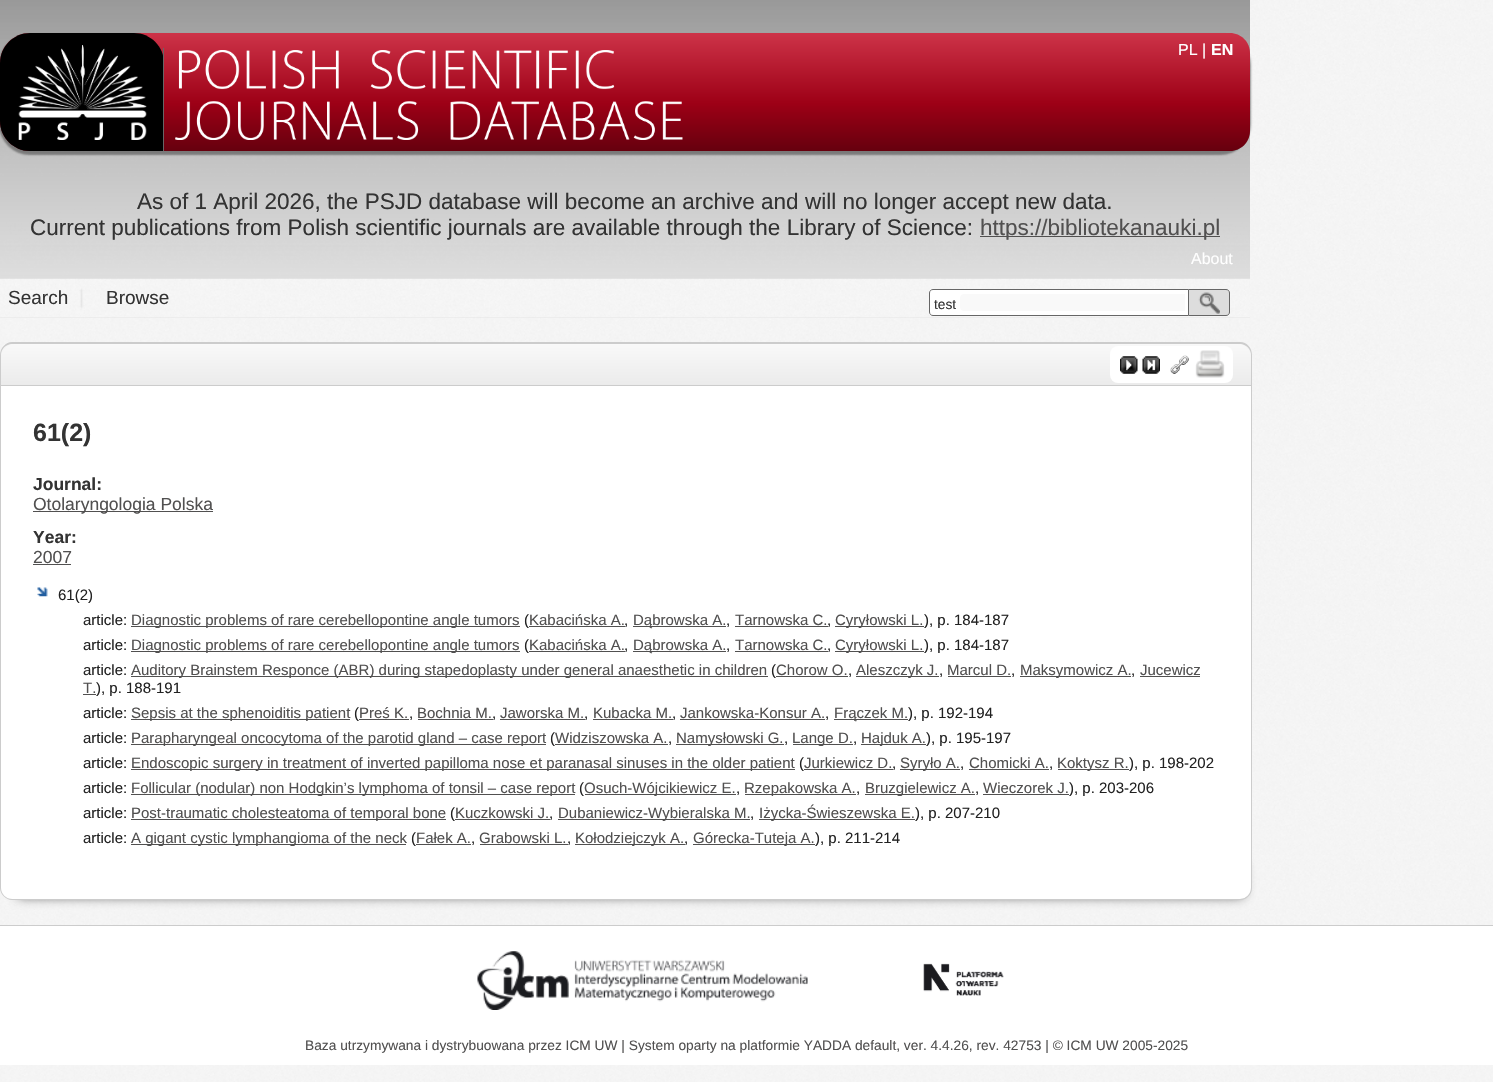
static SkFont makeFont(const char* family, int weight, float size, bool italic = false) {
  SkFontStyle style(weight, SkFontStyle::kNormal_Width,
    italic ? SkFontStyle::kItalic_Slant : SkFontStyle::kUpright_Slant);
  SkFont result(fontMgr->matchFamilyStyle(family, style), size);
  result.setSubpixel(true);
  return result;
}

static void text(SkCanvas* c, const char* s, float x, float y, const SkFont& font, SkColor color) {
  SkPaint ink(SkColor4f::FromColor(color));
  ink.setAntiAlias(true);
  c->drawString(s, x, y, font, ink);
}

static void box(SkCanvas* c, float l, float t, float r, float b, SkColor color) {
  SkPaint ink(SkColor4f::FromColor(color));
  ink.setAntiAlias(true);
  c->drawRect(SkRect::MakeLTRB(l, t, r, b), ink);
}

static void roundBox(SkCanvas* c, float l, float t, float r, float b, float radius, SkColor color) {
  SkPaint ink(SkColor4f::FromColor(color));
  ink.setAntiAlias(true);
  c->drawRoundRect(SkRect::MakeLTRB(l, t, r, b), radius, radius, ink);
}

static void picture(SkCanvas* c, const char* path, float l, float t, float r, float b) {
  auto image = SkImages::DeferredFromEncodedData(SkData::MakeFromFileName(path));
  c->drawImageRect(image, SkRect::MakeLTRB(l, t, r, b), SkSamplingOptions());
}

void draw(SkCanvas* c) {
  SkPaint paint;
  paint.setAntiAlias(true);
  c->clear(0xffffffff);
  picture(c, "img_01.png", 0, 0, 1493, 1082);
  paint.setColor(0x80323232);
  paint.setMaskFilter(SkMaskFilter::MakeBlur(kNormal_SkBlurStyle, 1));
  c->drawRoundRect(SkRect::MakeLTRB(-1, 34, 1251, 155), 31, 31, paint);
  paint.setMaskFilter(nullptr);
  c->save();
  c->clipPath(SkPathBuilder().moveTo(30, 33).lineTo(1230, 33).cubicTo(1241, 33, 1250, 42, 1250, 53).lineTo(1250, 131).cubicTo(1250, 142, 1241, 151, 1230, 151).lineTo(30, 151).cubicTo(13.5f, 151, 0, 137.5f, 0, 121).lineTo(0, 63).cubicTo(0, 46.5f, 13.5f, 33, 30, 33).close().detach(), true);
  paint.setMaskFilter(SkMaskFilter::MakeBlur(kNormal_SkBlurStyle, 1));
  c->drawRoundRect(SkRect::MakeLTRB(-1, 34, 1251, 155), 31, 31, paint);
  paint.setMaskFilter(nullptr);
  c->restore();
  {
    const SkColor colors[] = {0xffce3449, 0xff9d0016, 0xff66000e};
    const float stops[] = {0, 0.6f, 1};
    const SkPoint ends[] = {{625, 32}, {625, 151}};
    paint.setShader(SkGradientShader::MakeLinear(ends, colors, stops, 3, SkTileMode::kClamp));
    paint.setAlpha(255);
  }
  c->drawPath(SkPathBuilder().moveTo(30, 33).lineTo(1230, 33).cubicTo(1241, 33, 1250, 42, 1250, 53).lineTo(1250, 131).cubicTo(1250, 142, 1241, 151, 1230, 151).lineTo(30, 151).cubicTo(13.5f, 151, 0, 137.5f, 0, 121).lineTo(0, 63).cubicTo(0, 46.5f, 13.5f, 33, 30, 33).close().detach(), paint);
  paint.setShader(nullptr);
  paint.setColor(0xff000000);
  c->drawPath(SkPathBuilder().moveTo(30, 33).lineTo(134, 33).cubicTo(150.5f, 33, 164, 46.5f, 164, 63).lineTo(164, 151).lineTo(30, 151).cubicTo(13.5f, 151, 0, 137.5f, 0, 121).lineTo(0, 63).cubicTo(0, 46.5f, 13.5f, 33, 30, 33).close().detach(), paint);
  box(c, 163, 48, 164, 151, 0xff666666);
  picture(c, "img_02.png", 18, 45, 147, 140);
  picture(c, "img_03.png", 175, 50, 683, 140);
  SkFont face1 = makeFont("Liberation Sans", 400, 16);
  text(c, "PL", 1178, 55, face1, 0xffffffff);
  text(c, "|", 1202, 55, face1, 0xffffffff);
  SkFont face2 = makeFont("Liberation Sans", 700, 16);
  text(c, "EN", 1211, 55, face2, 0xffffffff);
  SkFont face3 = makeFont("Liberation Sans", 400, 22.5f);
  text(c, "As of 1 April 2026, the PSJD database will become an archive and will no longer accept new data.", 137, 209, face3, 0xff333333);
  text(c, "Current publications from Polish scientific journals are available through the Library of Science:", 30, 235, face3, 0xff333333);
  box(c, 980, 236, 1220, 237, 0xff515050);
  text(c, "https://bibliotekanauki.pl", 980, 235, face3, 0xff515050);
  picture(c, "img_04.png", 0, 278, 1250, 318);
  text(c, "About", 1191, 264, face1, 0xffffffff);
  SkFont face4 = makeFont("Liberation Sans", 400, 19);
  text(c, "Search", 8, 304, face4, 0xff333333);
  paint.setColor(0x33646464);
  paint.setMaskFilter(SkMaskFilter::MakeBlur(kNormal_SkBlurStyle, 1));
  c->drawRect(SkRect::MakeLTRB(81, 289, 82, 308), paint);
  paint.setMaskFilter(nullptr);
  text(c, "Browse", 106, 304, face4, 0xff333333);
  paint.setColor(0xffffffff);
  c->drawPath(SkPathBuilder().moveTo(933, 289.5f).lineTo(1189.5f, 289.5f).lineTo(1189.5f, 315.5f).lineTo(933, 315.5f).cubicTo(931, 315.5f, 929.5f, 314, 929.5f, 312).lineTo(929.5f, 293).cubicTo(929.5f, 291, 931, 289.5f, 933, 289.5f).close().detach(), paint);
  paint.setStyle(SkPaint::kStroke_Style);
  paint.setStrokeWidth(1);
  paint.setColor(0xff666666);
  c->drawPath(SkPathBuilder().moveTo(933, 289.5f).lineTo(1189.5f, 289.5f).lineTo(1189.5f, 315.5f).lineTo(933, 315.5f).cubicTo(931, 315.5f, 929.5f, 314, 929.5f, 312).lineTo(929.5f, 293).cubicTo(929.5f, 291, 931, 289.5f, 933, 289.5f).close().detach(), paint);
  SkFont face5 = makeFont("Liberation Sans", 400, 13.75f);
  text(c, "test", 934, 309, face5, 0xff333333);
  paint.setStyle(SkPaint::kFill_Style);
  paint.setColor(0xfff9f9f9);
  c->drawPath(SkPathBuilder().moveTo(964, 294).lineTo(1185, 294).lineTo(1185, 311).lineTo(964, 311).cubicTo(962, 311, 960, 309, 960, 307).lineTo(960, 298).cubicTo(960, 296, 962, 294, 964, 294).close().detach(), paint);
  paint.setColor(0xffdddddd);
  c->drawPath(SkPathBuilder().moveTo(1188, 289).lineTo(1226, 289).cubicTo(1228, 289, 1230, 291, 1230, 293).lineTo(1230, 312).cubicTo(1230, 314, 1228, 316, 1226, 316).lineTo(1188, 316).close().detach(), paint);
  picture(c, "img_05.png", 1198, 292, 1220, 314);
  paint.setStyle(SkPaint::kStroke_Style);
  paint.setColor(0xff666666);
  c->drawPath(SkPathBuilder().moveTo(1188.5f, 289.5f).lineTo(1226, 289.5f).cubicTo(1228, 289.5f, 1229.5f, 291, 1229.5f, 293).lineTo(1229.5f, 312).cubicTo(1229.5f, 314, 1228, 315.5f, 1226, 315.5f).lineTo(1188.5f, 315.5f).close().detach(), paint);
  paint.setStyle(SkPaint::kFill_Style);
  paint.setColor(0xffcccccc);
  c->drawPath(SkPathBuilder(SkPathFillType::kEvenOdd).moveTo(12, 342).lineTo(1240, 342).cubicTo(1247, 342, 1252, 348, 1252, 355).lineTo(1252, 386).lineTo(0, 386).lineTo(0, 355).cubicTo(0, 348, 6, 342, 12, 342).close().moveTo(12, 344).lineTo(1240, 344).cubicTo(1246, 344, 1251, 349, 1251, 355).lineTo(1251, 386).lineTo(1, 386).lineTo(1, 355).cubicTo(1, 349, 6, 344, 12, 344).close().detach(), paint);
  {
    const SkColor colors[] = {0xfff9f9f9, 0xffebebeb};
    const float stops[] = {0, 1};
    const SkPoint ends[] = {{626, 344}, {626, 385}};
    paint.setShader(SkGradientShader::MakeLinear(ends, colors, stops, 2, SkTileMode::kClamp));
    paint.setAlpha(255);
  }
  c->drawPath(SkPathBuilder().moveTo(14, 344).lineTo(1238, 344).cubicTo(1245, 344, 1251, 350, 1251, 357).lineTo(1251, 385).lineTo(1, 385).lineTo(1, 357).cubicTo(1, 350, 7, 344, 14, 344).close().detach(), paint);
  box(c, 1, 385, 1251, 386, 0xffcccccc);
  roundBox(c, 1110, 346, 1233, 383, 8, 0xffffffff);
  picture(c, "img_06.png", 1120, 356, 1138, 374);
  picture(c, "img_07.png", 1142, 356, 1160, 374);
  picture(c, "img_08.png", 1170, 355, 1189, 374);
  picture(c, "img_09.png", 1195, 350, 1225, 378);
  paint.setShader(nullptr);
  paint.setColor(0xcc000000);
  paint.setMaskFilter(SkMaskFilter::MakeBlur(kNormal_SkBlurStyle, 6));
  c->drawRect(SkRect::MakeLTRB(18, 865, 1243, 896), paint);
  paint.setMaskFilter(nullptr);
  paint.setColor(0xffffffff);
  c->drawPath(SkPathBuilder().moveTo(1, 386).lineTo(1251, 386).lineTo(1251, 888).cubicTo(1251, 894, 1246, 899, 1240, 899).lineTo(12, 899).cubicTo(6, 899, 1, 894, 1, 888).close().detach(), paint);
  paint.setColor(0xffcccccc);
  c->drawPath(SkPathBuilder(SkPathFillType::kEvenOdd).moveTo(0, 386).lineTo(1252, 386).lineTo(1252, 888).cubicTo(1252, 894, 1247, 900, 1240, 900).lineTo(12, 900).cubicTo(6, 900, 0, 894, 0, 888).close().moveTo(1, 386).lineTo(1251, 386).lineTo(1251, 888).cubicTo(1251, 894, 1246, 899, 1240, 899).lineTo(12, 899).cubicTo(6, 899, 1, 894, 1, 888).close().detach(), paint);
  SkFont face6 = makeFont("Liberation Sans", 700, 25);
  text(c, "61(2)", 33, 441, face6, 0xff333333);
  SkFont face7 = makeFont("Liberation Sans", 700, 17.5f);
  text(c, "Journal:", 33, 490, face7, 0xff333333);
  box(c, 33, 511, 213, 512, 0xff515050);
  SkFont face8 = makeFont("Liberation Sans", 400, 17.5f);
  text(c, "Otolaryngologia Polska", 33, 510, face8, 0xff515050);
  text(c, "Year:", 33, 543, face7, 0xff333333);
  text(c, "2007", 33, 563, face8, 0xff515050);
  box(c, 33, 564, 71, 565, 0xff515050);
  picture(c, "img_10.png", 37, 587, 48, 597);
  SkFont face9 = makeFont("Liberation Sans", 400, 15);
  text(c, "61(2)", 58, 600, face9, 0xff222222);
  text(c, "article:", 83, 625, face9, 0xff222222);
  box(c, 131, 626, 520, 627, 0xff515050);
  text(c, "Diagnostic problems of rare cerebellopontine angle tumors", 131, 625, face9, 0xff515050);
  text(c, "(", 524, 625, face9, 0xff222222);
  text(c, "Kabacińska A.", 529, 625, face9, 0xff515050);
  text(c, ",", 624, 625, face9, 0xff222222);
  box(c, 529, 626, 625, 627, 0xff515050);
  box(c, 633, 626, 726, 627, 0xff515050);
  text(c, "Dąbrowska A.", 633, 625, face9, 0xff515050);
  text(c, ",", 726, 625, face9, 0xff222222);
  text(c, "Tarnowska C.", 735, 625, face9, 0xff515050);
  text(c, ",", 827, 625, face9, 0xff222222);
  box(c, 735, 626, 828, 627, 0xff515050);
  box(c, 835, 626, 924, 627, 0xff515050);
  text(c, "Cyryłowski L.", 835, 625, face9, 0xff515050);
  text(c, "), p. 184-187", 924, 625, face9, 0xff222222);
  text(c, "article:", 83, 650, face9, 0xff222222);
  box(c, 131, 651, 520, 652, 0xff515050);
  text(c, "Diagnostic problems of rare cerebellopontine angle tumors", 131, 650, face9, 0xff515050);
  text(c, "(", 524, 650, face9, 0xff222222);
  text(c, "Kabacińska A.", 529, 650, face9, 0xff515050);
  text(c, ",", 624, 650, face9, 0xff222222);
  box(c, 529, 651, 625, 652, 0xff515050);
  box(c, 633, 651, 726, 652, 0xff515050);
  text(c, "Dąbrowska A.", 633, 650, face9, 0xff515050);
  text(c, ",", 726, 650, face9, 0xff222222);
  text(c, "Tarnowska C.", 735, 650, face9, 0xff515050);
  text(c, ",", 827, 650, face9, 0xff222222);
  box(c, 735, 651, 828, 652, 0xff515050);
  box(c, 835, 651, 924, 652, 0xff515050);
  text(c, "Cyryłowski L.", 835, 650, face9, 0xff515050);
  text(c, "), p. 184-187", 924, 650, face9, 0xff222222);
  text(c, "article:", 83, 675, face9, 0xff222222);
  box(c, 131, 676, 768, 677, 0xff515050);
  text(c, "Auditory Brainstem Responce (ABR) during stapedoplasty under general anaesthetic in children", 131, 675, face9, 0xff515050);
  text(c, "(", 771, 675, face9, 0xff222222);
  text(c, "Chorow O.", 776, 675, face9, 0xff515050);
  text(c, ",", 848, 675, face9, 0xff222222);
  box(c, 776, 676, 848, 677, 0xff515050);
  box(c, 856, 676, 939, 677, 0xff515050);
  text(c, "Aleszczyk J.", 856, 675, face9, 0xff515050);
  text(c, ",", 939, 675, face9, 0xff222222);
  text(c, "Marcul D.", 947, 675, face9, 0xff515050);
  text(c, ",", 1011, 675, face9, 0xff222222);
  box(c, 948, 676, 1011, 677, 0xff515050);
  box(c, 1020, 676, 1131, 677, 0xff515050);
  text(c, "Maksymowicz A.", 1020, 675, face9, 0xff515050);
  text(c, ",", 1131, 675, face9, 0xff222222);
  box(c, 1140, 676, 1200, 677, 0xff515050);
  text(c, "Jucewicz", 1140, 675, face9, 0xff515050);
  text(c, "T.", 83, 693, face9, 0xff515050);
  box(c, 83, 694, 96, 695, 0xff515050);
  text(c, "), p. 188-191", 96, 693, face9, 0xff222222);
  text(c, "article:", 83, 718, face9, 0xff222222);
  box(c, 131, 719, 350, 720, 0xff515050);
  text(c, "Sepsis at the sphenoiditis patient", 131, 718, face9, 0xff515050);
  text(c, "(", 354, 718, face9, 0xff222222);
  text(c, "Preś K.", 359, 718, face9, 0xff515050);
  text(c, ",", 409, 718, face9, 0xff222222);
  box(c, 359, 719, 409, 720, 0xff515050);
  text(c, "Bochnia M.", 417, 718, face9, 0xff515050);
  text(c, ",", 492, 718, face9, 0xff222222);
  box(c, 418, 719, 493, 720, 0xff515050);
  text(c, "Jaworska M.", 500, 718, face9, 0xff515050);
  text(c, ",", 584, 718, face9, 0xff222222);
  box(c, 500, 719, 585, 720, 0xff515050);
  text(c, "Kubacka M.", 593, 718, face9, 0xff515050);
  text(c, ",", 672, 718, face9, 0xff222222);
  box(c, 593, 719, 673, 720, 0xff515050);
  text(c, "Jankowska-Konsur A.", 680, 718, face9, 0xff515050);
  text(c, ",", 825, 718, face9, 0xff222222);
  box(c, 680, 719, 825, 720, 0xff515050);
  box(c, 834, 719, 908, 720, 0xff515050);
  text(c, "Frączek M.", 834, 718, face9, 0xff515050);
  text(c, "), p. 192-194", 908, 718, face9, 0xff222222);
  text(c, "article:", 83, 743, face9, 0xff222222);
  box(c, 131, 744, 546, 745, 0xff515050);
  text(c, "Parapharyngeal oncocytoma of the parotid gland – case report", 131, 743, face9, 0xff515050);
  text(c, "(", 550, 743, face9, 0xff222222);
  text(c, "Widziszowska A.", 555, 743, face9, 0xff515050);
  text(c, ",", 668, 743, face9, 0xff222222);
  box(c, 555, 744, 668, 745, 0xff515050);
  box(c, 676, 744, 784, 745, 0xff515050);
  text(c, "Namysłowski G.", 676, 743, face9, 0xff515050);
  text(c, ",", 784, 743, face9, 0xff222222);
  box(c, 793, 744, 853, 745, 0xff515050);
  text(c, "Lange D.", 792, 743, face9, 0xff515050);
  text(c, ",", 853, 743, face9, 0xff222222);
  box(c, 861, 744, 926, 745, 0xff515050);
  text(c, "Hajduk A.", 861, 743, face9, 0xff515050);
  text(c, "), p. 195-197", 926, 743, face9, 0xff222222);
  text(c, "article:", 83, 768, face9, 0xff222222);
  box(c, 131, 769, 795, 770, 0xff515050);
  text(c, "Endoscopic surgery in treatment of inverted papilloma nose et paranasal sinuses in the older patient", 131, 768, face9, 0xff515050);
  text(c, "(", 799, 768, face9, 0xff222222);
  text(c, "Jurkiewicz D.", 804, 768, face9, 0xff515050);
  text(c, ",", 892, 768, face9, 0xff222222);
  box(c, 804, 769, 893, 770, 0xff515050);
  box(c, 900, 769, 960, 770, 0xff515050);
  text(c, "Syryło A.", 900, 768, face9, 0xff515050);
  text(c, ",", 960, 768, face9, 0xff222222);
  text(c, "Chomicki A.", 969, 768, face9, 0xff515050);
  text(c, ",", 1049, 768, face9, 0xff222222);
  box(c, 969, 769, 1049, 770, 0xff515050);
  box(c, 1058, 769, 1129, 770, 0xff515050);
  text(c, "Koktysz R.", 1057, 768, face9, 0xff515050);
  text(c, "), p. 198-202", 1129, 768, face9, 0xff222222);
  text(c, "article:", 83, 793, face9, 0xff222222);
  box(c, 131, 794, 575, 795, 0xff515050);
  text(c, "Follicular (nodular) non Hodgkin’s lymphoma of tonsil – case report", 131, 793, face9, 0xff515050);
  text(c, "(", 579, 793, face9, 0xff222222);
  box(c, 585, 794, 736, 795, 0xff515050);
  text(c, "Osuch-Wójcikiewicz E.", 584, 793, face9, 0xff515050);
  text(c, ",", 736, 793, face9, 0xff222222);
  box(c, 745, 794, 856, 795, 0xff515050);
  text(c, "Rzepakowska A.", 744, 793, face9, 0xff515050);
  text(c, ",", 856, 793, face9, 0xff222222);
  box(c, 865, 794, 975, 795, 0xff515050);
  text(c, "Bruzgielewicz A.", 865, 793, face9, 0xff515050);
  text(c, ",", 975, 793, face9, 0xff222222);
  box(c, 983, 794, 1069, 795, 0xff515050);
  text(c, "Wieczorek J.", 983, 793, face9, 0xff515050);
  text(c, "), p. 203-206", 1069, 793, face9, 0xff222222);
  text(c, "article:", 83, 818, face9, 0xff222222);
  box(c, 131, 819, 446, 820, 0xff515050);
  text(c, "Post-traumatic cholesteatoma of temporal bone", 131, 818, face9, 0xff515050);
  text(c, "(", 450, 818, face9, 0xff222222);
  text(c, "Kuczkowski J.", 455, 818, face9, 0xff515050);
  text(c, ",", 549, 818, face9, 0xff222222);
  box(c, 455, 819, 550, 820, 0xff515050);
  box(c, 558, 819, 750, 820, 0xff515050);
  text(c, "Dubaniewicz-Wybieralska M.", 558, 818, face9, 0xff515050);
  text(c, ",", 750, 818, face9, 0xff222222);
  box(c, 759, 819, 915, 820, 0xff515050);
  text(c, "Iżycka-Świeszewska E.", 759, 818, face9, 0xff515050);
  text(c, "), p. 207-210", 915, 818, face9, 0xff222222);
  text(c, "article:", 83, 843, face9, 0xff222222);
  box(c, 131, 844, 406, 845, 0xff515050);
  text(c, "A gigant cystic lymphangioma of the neck", 131, 843, face9, 0xff515050);
  text(c, "(", 411, 843, face9, 0xff222222);
  text(c, "Fałek A.", 416, 843, face9, 0xff515050);
  text(c, ",", 471, 843, face9, 0xff222222);
  box(c, 416, 844, 471, 845, 0xff515050);
  text(c, "Grabowski L.", 479, 843, face9, 0xff515050);
  text(c, ",", 567, 843, face9, 0xff222222);
  box(c, 480, 844, 568, 845, 0xff515050);
  box(c, 575, 844, 685, 845, 0xff515050);
  text(c, "Kołodziejczyk A.", 575, 843, face9, 0xff515050);
  text(c, ",", 684, 843, face9, 0xff222222);
  box(c, 693, 844, 815, 845, 0xff515050);
  text(c, "Górecka-Tuteja A.", 693, 843, face9, 0xff515050);
  text(c, "), p. 211-214", 815, 843, face9, 0xff222222);
  box(c, 0, 926, 1493, 1065, 0xffffffff);
  box(c, 0, 925, 1493, 926, 0xffcccccc);
  picture(c, "img_11.png", 477, 951, 808, 1010);
  picture(c, "img_12.png", 923, 963, 1004, 996);
  text(c, "Baza utrzymywana i dystrybuowana przez ICM UW | System oparty na platformie YADDA default, ver. 4.4.26, rev. 42753 | © ICM UW 2005-2025", 305, 1050, face5, 0xff515050);
}
